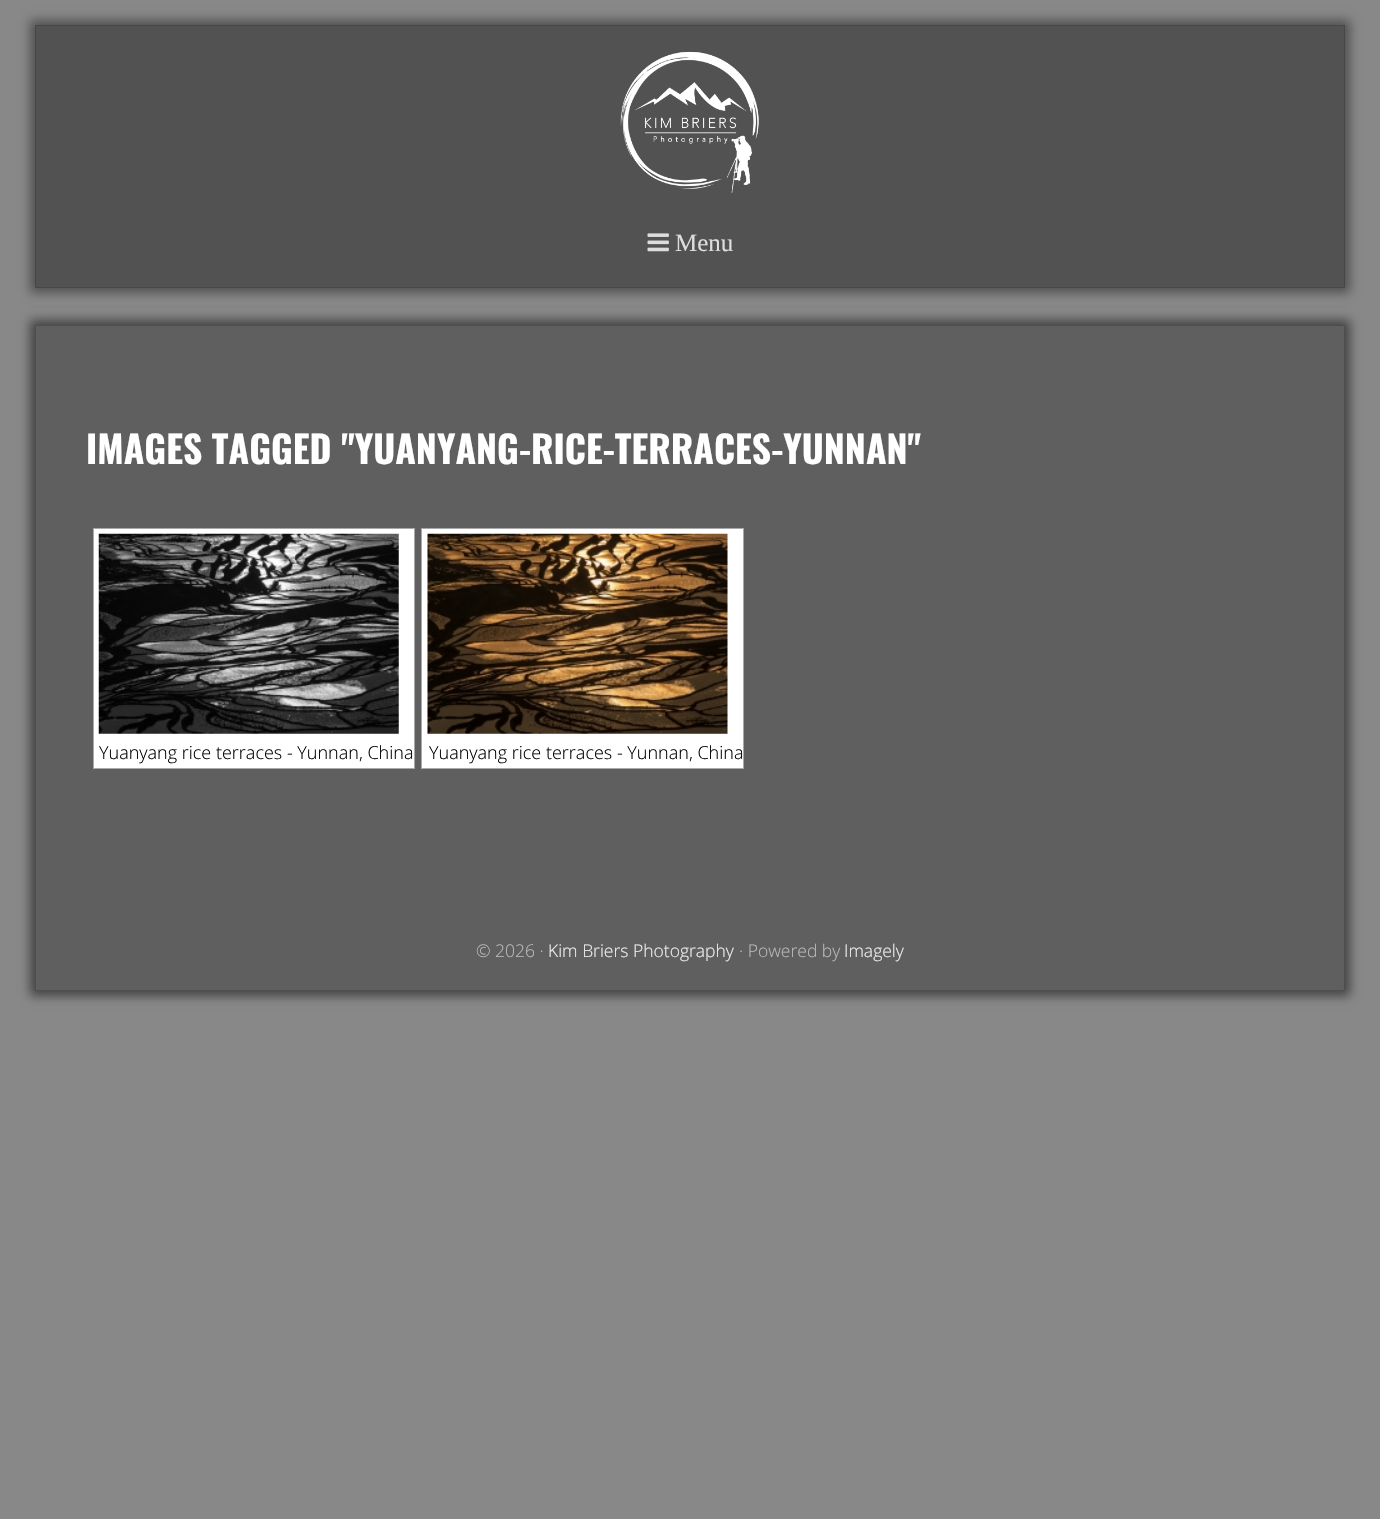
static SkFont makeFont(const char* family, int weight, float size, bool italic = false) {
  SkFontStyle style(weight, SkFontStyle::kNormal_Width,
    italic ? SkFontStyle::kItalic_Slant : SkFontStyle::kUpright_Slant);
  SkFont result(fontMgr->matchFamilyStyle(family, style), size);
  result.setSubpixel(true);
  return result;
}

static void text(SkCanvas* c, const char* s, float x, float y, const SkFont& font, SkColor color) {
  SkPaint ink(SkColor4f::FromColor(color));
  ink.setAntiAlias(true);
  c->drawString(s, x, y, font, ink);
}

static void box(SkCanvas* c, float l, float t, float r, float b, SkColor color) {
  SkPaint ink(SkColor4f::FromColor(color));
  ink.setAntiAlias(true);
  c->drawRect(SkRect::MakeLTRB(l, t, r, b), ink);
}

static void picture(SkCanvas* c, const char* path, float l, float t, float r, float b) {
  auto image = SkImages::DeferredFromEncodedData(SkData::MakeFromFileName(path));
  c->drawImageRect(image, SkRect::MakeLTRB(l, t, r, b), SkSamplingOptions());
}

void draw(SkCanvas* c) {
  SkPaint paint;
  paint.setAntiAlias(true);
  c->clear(0xff888888);
  c->save();
  c->clipPath(SkPathBuilder(SkPathFillType::kEvenOdd).moveTo(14, 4).lineTo(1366, 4).lineTo(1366, 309).lineTo(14, 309).close().moveTo(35, 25).lineTo(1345, 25).lineTo(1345, 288).lineTo(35, 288).close().detach(), true);
  paint.setColor(0x66000000);
  paint.setMaskFilter(SkMaskFilter::MakeBlur(kNormal_SkBlurStyle, 5));
  c->drawRect(SkRect::MakeLTRB(30, 20, 1350, 293), paint);
  paint.setMaskFilter(nullptr);
  c->restore();
  box(c, 35, 25, 1345, 288, 0x66000000);
  paint.setStyle(SkPaint::kStroke_Style);
  paint.setStrokeWidth(1);
  paint.setColor(0x803c3c3c);
  c->drawRect(SkRect::MakeLTRB(35.5f, 25.5f, 1344.5f, 287.5f), paint);
  picture(c, "img_01.png", 620, 51, 759, 193);
  picture(c, "img_02.png", 647, 233, 669, 252);
  SkFont face1 = makeFont("Liberation Serif", 400, 25);
  text(c, "Menu", 675, 251, face1, 0xffdddddd);
  paint.setStyle(SkPaint::kFill_Style);
  paint.setColor(0x80000000);
  paint.setMaskFilter(SkMaskFilter::MakeBlur(kNormal_SkBlurStyle, 5));
  c->drawRect(SkRect::MakeLTRB(30, 320, 1350, 996), paint);
  paint.setMaskFilter(nullptr);
  paint.setColor(0xff5f5f5f);
  c->drawRect(SkRect::MakeLTRB(35.5f, 325.5f, 1344.5f, 990.5f), paint);
  paint.setStyle(SkPaint::kStroke_Style);
  paint.setColor(0xff4e4e4e);
  c->drawRect(SkRect::MakeLTRB(35.5f, 325.5f, 1344.5f, 990.5f), paint);
  SkFont face2 = makeFont("Oswald", 700, 37.5f);
  text(c, "IMAGES TAGGED \"YUANYANG-RICE-TERRACES-YUNNAN\"", 86, 464, face2, 0xffffffff);
  paint.setStyle(SkPaint::kFill_Style);
  paint.setColor(0xffffffff);
  c->drawRect(SkRect::MakeLTRB(93.5f, 528.5f, 414.5f, 768.5f), paint);
  paint.setStyle(SkPaint::kStroke_Style);
  paint.setColor(0xffa9a9a9);
  c->drawRect(SkRect::MakeLTRB(93.5f, 528.5f, 414.5f, 768.5f), paint);
  picture(c, "img_03.png", 98, 533, 399, 734);
  SkFont face3 = makeFont("Open Sans", 300, 18);
  text(c, "Yuanyang rice terraces - Yunnan, China", 99, 759, face3, 0xff000000);
  paint.setStyle(SkPaint::kFill_Style);
  paint.setColor(0xffffffff);
  c->drawRect(SkRect::MakeLTRB(421.5f, 528.5f, 743.5f, 768.5f), paint);
  paint.setStyle(SkPaint::kStroke_Style);
  paint.setColor(0xffa9a9a9);
  c->drawRect(SkRect::MakeLTRB(421.5f, 528.5f, 743.5f, 768.5f), paint);
  picture(c, "img_04.png", 427, 533, 728, 734);
  text(c, "Yuanyang rice terraces - Yunnan, China", 429, 759, face3, 0xff000000);
  SkFont face4 = makeFont("Open Sans", 300, 17.5f);
  text(c, "© 2026 ·", 476, 957, face4, 0xffbbbbbb);
  text(c, "Kim Briers Photography", 548, 957, face4, 0xffeeeeee);
  text(c, "· Powered by", 739, 957, face4, 0xffbbbbbb);
  text(c, "Imagely", 844, 957, face4, 0xffeeeeee);
}
